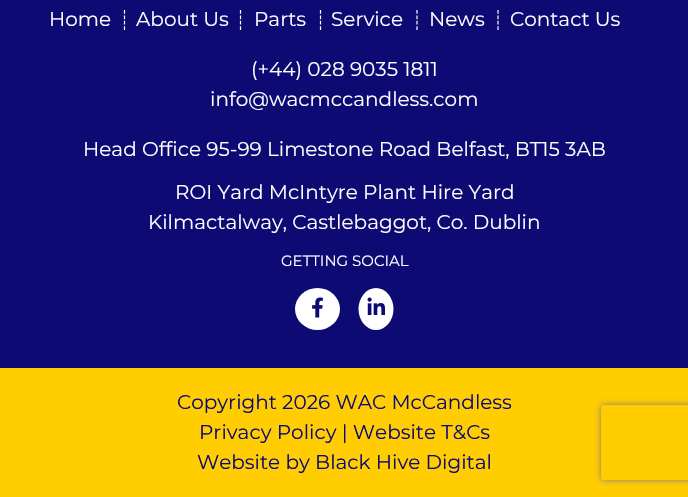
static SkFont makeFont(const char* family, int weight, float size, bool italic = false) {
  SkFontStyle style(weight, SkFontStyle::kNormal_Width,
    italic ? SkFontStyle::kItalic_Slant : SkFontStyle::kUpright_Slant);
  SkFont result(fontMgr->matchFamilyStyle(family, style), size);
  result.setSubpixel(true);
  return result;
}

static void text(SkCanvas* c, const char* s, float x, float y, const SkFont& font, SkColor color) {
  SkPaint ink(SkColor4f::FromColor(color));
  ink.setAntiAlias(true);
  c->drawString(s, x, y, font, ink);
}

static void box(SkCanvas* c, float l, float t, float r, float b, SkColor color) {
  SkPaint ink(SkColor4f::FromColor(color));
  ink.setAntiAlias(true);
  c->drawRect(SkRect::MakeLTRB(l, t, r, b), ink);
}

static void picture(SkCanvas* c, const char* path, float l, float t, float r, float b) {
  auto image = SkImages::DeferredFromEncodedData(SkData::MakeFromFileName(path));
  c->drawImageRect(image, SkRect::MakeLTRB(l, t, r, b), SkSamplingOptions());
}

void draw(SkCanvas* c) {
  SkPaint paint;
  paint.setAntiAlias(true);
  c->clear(0xff0d0a73);
  SkFont face1 = makeFont("Montserrat", 400, 20);
  text(c, "Home", 49, 26, face1, 0xffffffff);
  paint.setStyle(SkPaint::kStroke_Style);
  paint.setStrokeWidth(1.2f);
  paint.setColor(0xffffffff);
  paint.setPathEffect(SkDashPathEffect::Make({{3.75f, 1.66f}}, 0));
  c->drawPath(SkPathBuilder().moveTo(124.5f, 10).lineTo(124.5f, 30).detach(), paint);
  paint.setPathEffect(nullptr);
  text(c, "About Us", 136, 26, face1, 0xffffffff);
  paint.setPathEffect(SkDashPathEffect::Make({{3.75f, 1.66f}}, 0));
  c->drawPath(SkPathBuilder().moveTo(240.5f, 10).lineTo(240.5f, 30).detach(), paint);
  paint.setPathEffect(nullptr);
  text(c, "Parts", 254, 26, face1, 0xffffffff);
  paint.setPathEffect(SkDashPathEffect::Make({{3.75f, 1.66f}}, 0));
  c->drawPath(SkPathBuilder().moveTo(320.5f, 10).lineTo(320.5f, 30).detach(), paint);
  paint.setPathEffect(nullptr);
  text(c, "Service", 331, 26, face1, 0xffffffff);
  paint.setPathEffect(SkDashPathEffect::Make({{3.75f, 1.66f}}, 0));
  c->drawPath(SkPathBuilder().moveTo(417, 10).lineTo(417, 30).detach(), paint);
  paint.setPathEffect(nullptr);
  text(c, "News", 429, 26, face1, 0xffffffff);
  paint.setPathEffect(SkDashPathEffect::Make({{3.75f, 1.66f}}, 0));
  c->drawPath(SkPathBuilder().moveTo(498, 10).lineTo(498, 30).detach(), paint);
  paint.setPathEffect(nullptr);
  text(c, "Contact Us", 510, 26, face1, 0xffffffff);
  text(c, "(+44) 028 9035 1811", 251, 76, face1, 0xffffffff);
  text(c, "info@wacmccandless.com", 210, 106, face1, 0xffffffff);
  text(c, "Head Office 95-99 Limestone Road Belfast, BT15 3AB", 83, 156, face1, 0xffffffff);
  text(c, "ROI Yard McIntyre Plant Hire Yard", 175, 199, face1, 0xffffffff);
  text(c, "Kilmactalway, Castlebaggot, Co. Dublin", 148, 229, face1, 0xffffffff);
  SkFont face2 = makeFont("Montserrat", 400, 15);
  text(c, "GETTING SOCIAL", 281, 266, face2, 0xffffffff);
  paint.setStyle(SkPaint::kFill_Style);
  c->drawOval(SkRect::MakeLTRB(295, 288, 340, 330), paint);
  picture(c, "img_01.png", 312, 297, 323, 318);
  c->drawOval(SkRect::MakeLTRB(358.5f, 288, 393.5f, 330), paint);
  picture(c, "img_02.png", 367, 297, 385, 315);
  box(c, 0, 368, 688, 497, 0xffffcd00);
  text(c, "Copyright 2026 WAC McCandless", 177, 409, face1, 0xff0d0a73);
  text(c, "Privacy Policy | Website T&Cs", 199, 439, face1, 0xff0d0a73);
  text(c, "Website by Black Hive Digital", 197, 469, face1, 0xff0d0a73);
  c->save();
  c->clipPath(SkPathBuilder(SkPathFillType::kEvenOdd).moveTo(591, 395).lineTo(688, 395).lineTo(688, 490).lineTo(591, 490).close().moveTo(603.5f, 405).lineTo(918.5f, 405).cubicTo(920, 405, 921, 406, 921, 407.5f).lineTo(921, 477.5f).cubicTo(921, 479, 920, 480, 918.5f, 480).lineTo(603.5f, 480).cubicTo(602, 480, 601, 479, 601, 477.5f).lineTo(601, 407.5f).cubicTo(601, 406, 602, 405, 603.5f, 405).close().detach(), true);
  paint.setColor(0xff808080);
  paint.setMaskFilter(SkMaskFilter::MakeBlur(kNormal_SkBlurStyle, 3));
  c->drawRoundRect(SkRect::MakeLTRB(601, 405, 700, 480), 2.5f, 2.5f, paint);
  paint.setMaskFilter(nullptr);
  c->restore();
}
